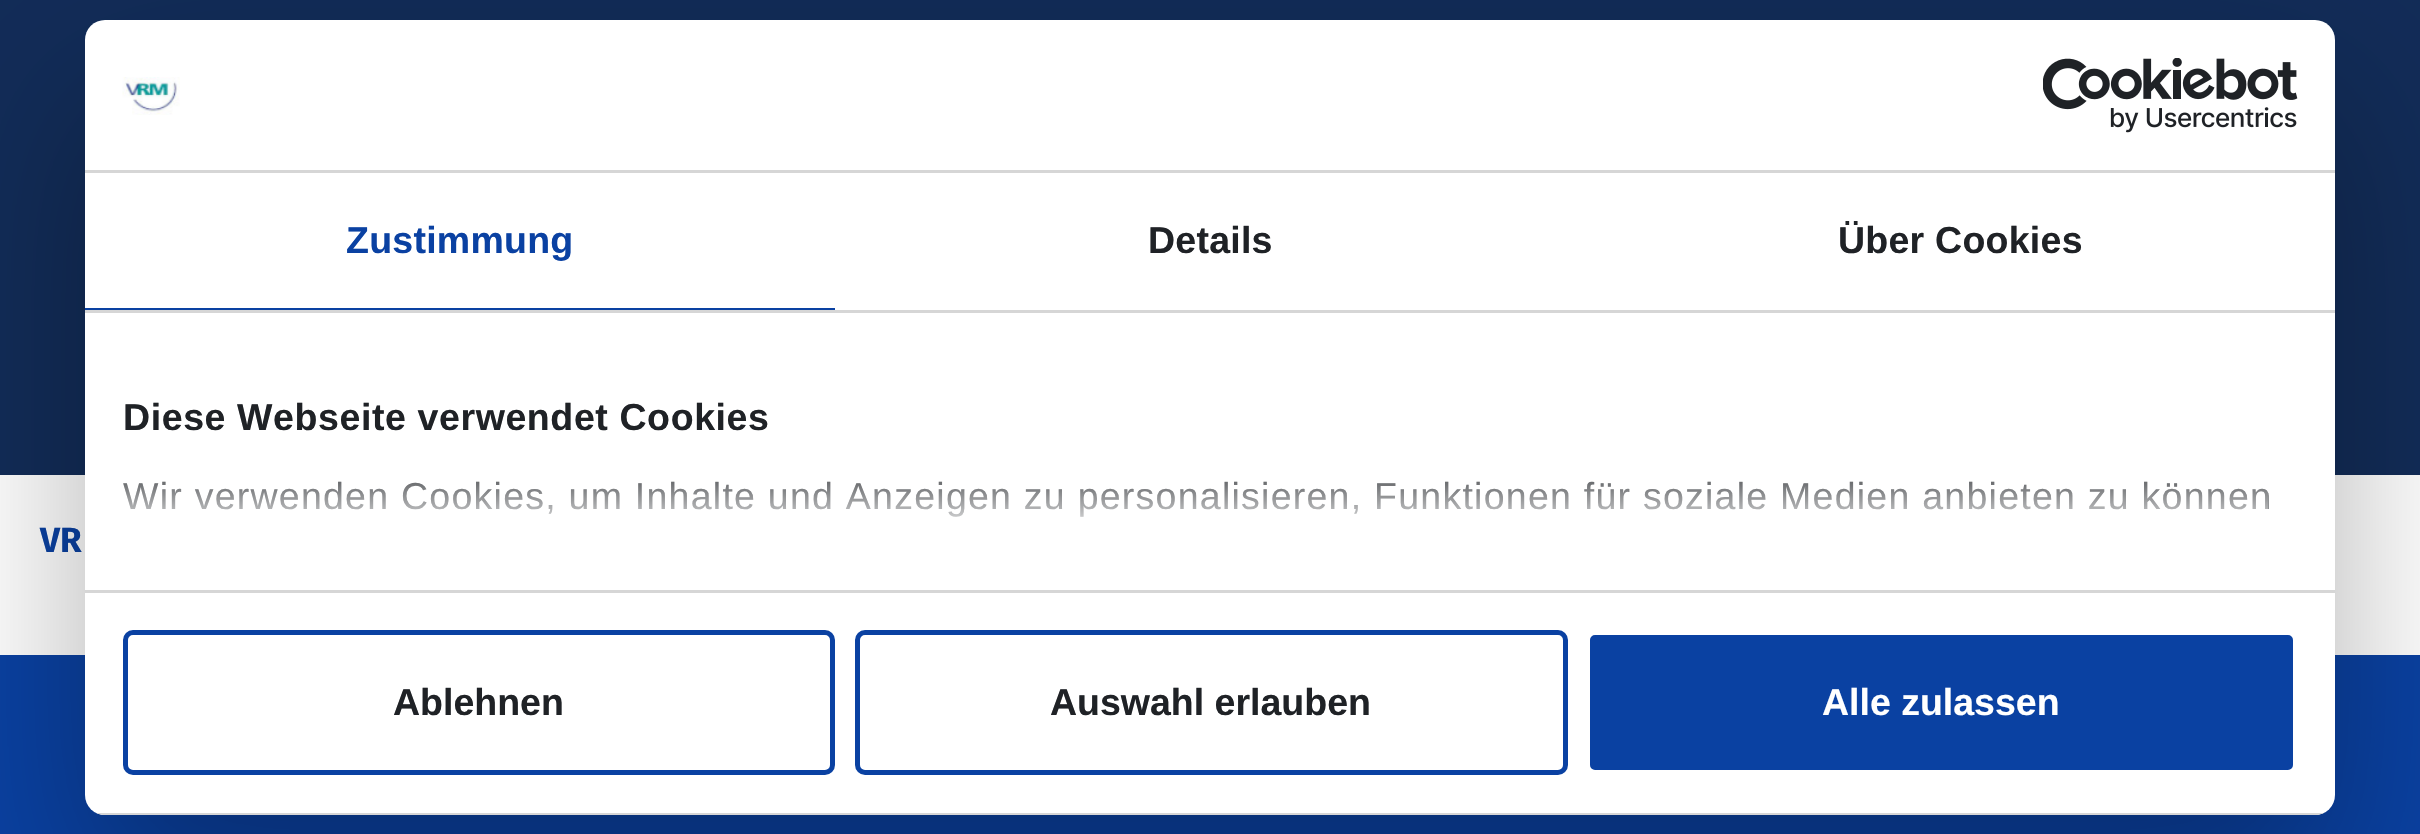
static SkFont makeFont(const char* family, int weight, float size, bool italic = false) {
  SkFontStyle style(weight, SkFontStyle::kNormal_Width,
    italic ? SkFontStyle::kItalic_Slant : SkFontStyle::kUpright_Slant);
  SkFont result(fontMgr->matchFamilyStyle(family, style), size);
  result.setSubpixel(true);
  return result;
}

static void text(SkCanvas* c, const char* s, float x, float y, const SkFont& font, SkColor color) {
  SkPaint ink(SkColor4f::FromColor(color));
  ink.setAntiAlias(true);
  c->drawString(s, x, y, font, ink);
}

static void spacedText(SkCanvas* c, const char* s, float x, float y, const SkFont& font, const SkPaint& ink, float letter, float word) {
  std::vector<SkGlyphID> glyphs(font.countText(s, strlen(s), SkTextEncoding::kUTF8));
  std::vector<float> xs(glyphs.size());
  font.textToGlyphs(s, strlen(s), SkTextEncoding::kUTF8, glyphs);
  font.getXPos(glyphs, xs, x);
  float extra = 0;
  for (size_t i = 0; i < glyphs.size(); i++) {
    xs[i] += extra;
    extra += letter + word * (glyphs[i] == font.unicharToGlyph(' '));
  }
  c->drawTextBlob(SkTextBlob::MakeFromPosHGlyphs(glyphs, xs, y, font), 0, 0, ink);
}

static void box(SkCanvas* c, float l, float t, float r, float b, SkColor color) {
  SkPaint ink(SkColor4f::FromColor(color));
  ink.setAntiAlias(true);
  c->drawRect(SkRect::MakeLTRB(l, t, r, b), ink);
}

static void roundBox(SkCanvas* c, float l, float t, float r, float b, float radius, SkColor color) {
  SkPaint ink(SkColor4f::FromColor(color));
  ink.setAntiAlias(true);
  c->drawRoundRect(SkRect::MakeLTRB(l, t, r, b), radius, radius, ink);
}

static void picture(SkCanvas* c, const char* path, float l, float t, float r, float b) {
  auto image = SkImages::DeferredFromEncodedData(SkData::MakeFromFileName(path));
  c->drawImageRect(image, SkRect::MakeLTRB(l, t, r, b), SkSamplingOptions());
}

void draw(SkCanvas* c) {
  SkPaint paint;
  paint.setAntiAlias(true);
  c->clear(0xffffffff);
  box(c, 0, 0, 2420, 475, 0xff122c58);
  SkFont face1 = makeFont("Fira Sans", 700, 35);
  text(c, "VR", 40, 552, face1, 0xff0a41a2);
  box(c, 0, 655, 2420, 834, 0xff0a41a2);
  paint.setColor(0x4d000000);
  paint.setMaskFilter(SkMaskFilter::MakeBlur(kNormal_SkBlurStyle, 85));
  c->drawRoundRect(SkRect::MakeLTRB(85, 100, 2335, 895), 20, 20, paint);
  paint.setMaskFilter(nullptr);
  roundBox(c, 85, 20, 2335, 815, 20, 0xffffffff);
  box(c, 85, 170, 2335, 173, 0xffd6d6d6);
  picture(c, "img_01.png", 122, 77, 180, 115);
  picture(c, "img_02.png", 2043, 58, 2298, 133);
  box(c, 85, 310, 2335, 313, 0xffd6d6d6);
  box(c, 85, 308, 835, 310, 0xff0a41a2);
  SkFont face2 = makeFont("Liberation Sans", 700, 37.5f);
  paint.setColor(0xff0a41a2);
  spacedText(c, "Zustimmung", 346, 253, face2, paint, 0.25f, 0);
  paint.setColor(0xff1f2226);
  spacedText(c, "Details", 1148, 253, face2, paint, 0.25f, 0);
  spacedText(c, "Über Cookies", 1838, 253, face2, paint, 0.25f, 0);
  box(c, 85, 590, 2335, 593, 0xffd6d6d6);
  spacedText(c, "Diese Webseite verwendet Cookies", 123, 430, face2, paint, 0.6f, 0);
  SkFont face3 = makeFont("Liberation Sans", 400, 37.5f);
  spacedText(c, "Wir verwenden Cookies, um Inhalte und Anzeigen zu personalisieren, Funktionen für soziale Medien anbieten zu können", 123, 509, face3, paint, 1.25f, 0);
  {
    const SkColor colors[] = {0xffffffff, 0xccffffff, 0x00ffffff};
    const float stops[] = {0, 0.5f, 1};
    const SkPoint ends[] = {{1194, 590}, {1194, 453}};
    paint.setShader(SkGradientShader::MakeLinear(ends, colors, stops, 3, SkTileMode::kClamp));
    paint.setAlpha(255);
  }
  c->drawRect(SkRect::MakeLTRB(122, 481, 2268, 517), paint);
  c->save();
  c->clipPath(SkPathBuilder().moveTo(105, 20).lineTo(2315, 20).cubicTo(2326, 20, 2335, 29, 2335, 40).lineTo(2335, 795).cubicTo(2335, 806, 2326, 815, 2315, 815).lineTo(105, 815).cubicTo(94, 815, 85, 806, 85, 795).lineTo(85, 40).cubicTo(85, 29, 94, 20, 105, 20).close().detach(), true);
  box(c, 96, 813, 2324, 815, 0xffd6d6d6);
  c->restore();
  paint.setStyle(SkPaint::kStroke_Style);
  paint.setStrokeWidth(5);
  paint.setShader(nullptr);
  paint.setColor(0xff0a41a2);
  c->drawRoundRect(SkRect::MakeLTRB(125.5f, 632.5f, 832.5f, 772.5f), 7.5f, 7.5f, paint);
  text(c, "Ablehnen", 393, 715, face2, 0xff1f2226);
  c->drawRoundRect(SkRect::MakeLTRB(857.5f, 632.5f, 1565.5f, 772.5f), 7.5f, 7.5f, paint);
  text(c, "Auswahl erlauben", 1050, 715, face2, 0xff1f2226);
  paint.setStyle(SkPaint::kFill_Style);
  c->drawRoundRect(SkRect::MakeLTRB(1587.5f, 632.5f, 2295.5f, 772.5f), 7.5f, 7.5f, paint);
  paint.setStyle(SkPaint::kStroke_Style);
  paint.setColor(0xffffffff);
  c->drawRoundRect(SkRect::MakeLTRB(1587.5f, 632.5f, 2295.5f, 772.5f), 7.5f, 7.5f, paint);
  text(c, "Alle zulassen", 1822, 715, face2, 0xffffffff);
}
